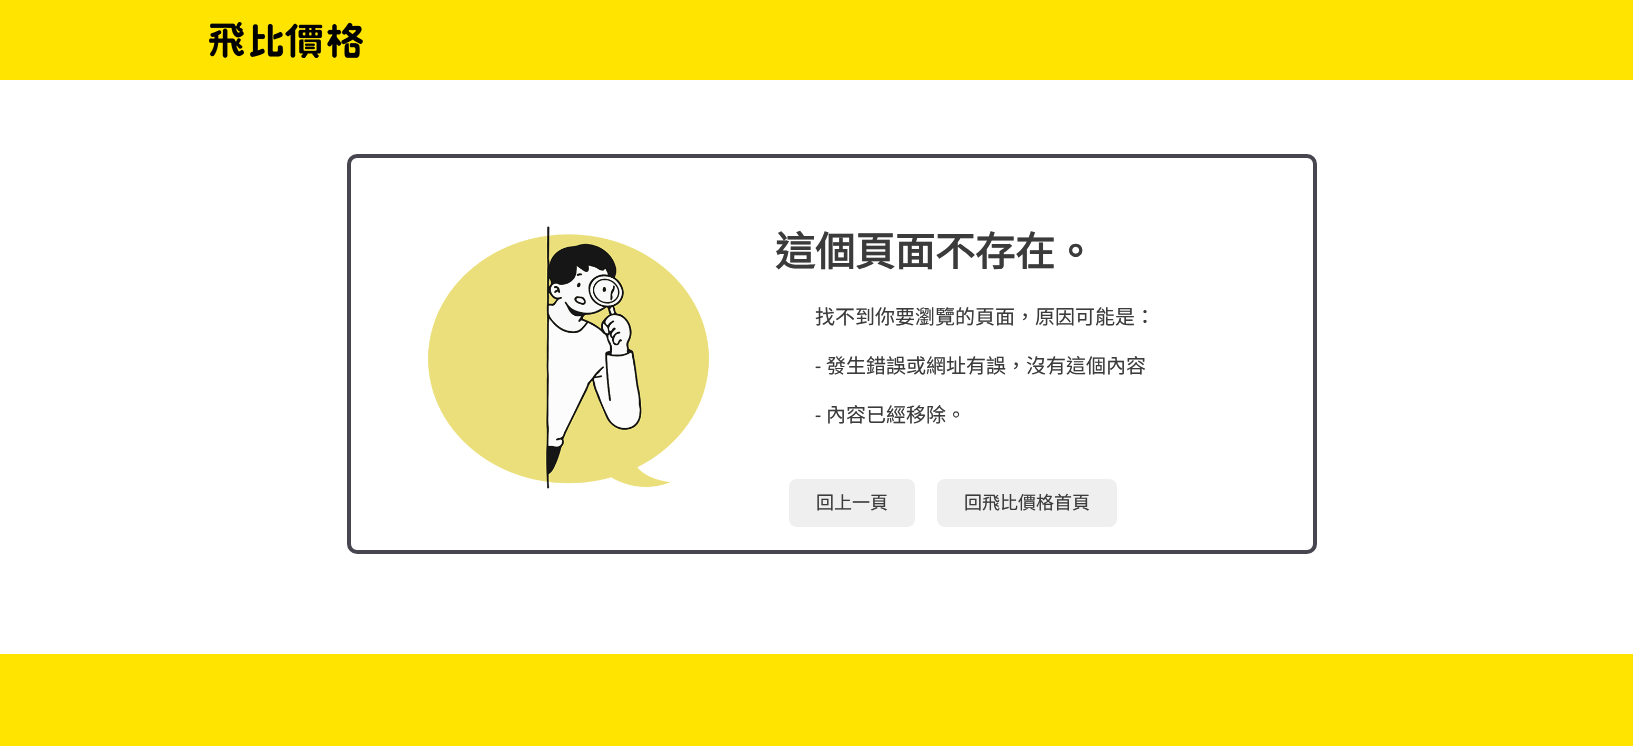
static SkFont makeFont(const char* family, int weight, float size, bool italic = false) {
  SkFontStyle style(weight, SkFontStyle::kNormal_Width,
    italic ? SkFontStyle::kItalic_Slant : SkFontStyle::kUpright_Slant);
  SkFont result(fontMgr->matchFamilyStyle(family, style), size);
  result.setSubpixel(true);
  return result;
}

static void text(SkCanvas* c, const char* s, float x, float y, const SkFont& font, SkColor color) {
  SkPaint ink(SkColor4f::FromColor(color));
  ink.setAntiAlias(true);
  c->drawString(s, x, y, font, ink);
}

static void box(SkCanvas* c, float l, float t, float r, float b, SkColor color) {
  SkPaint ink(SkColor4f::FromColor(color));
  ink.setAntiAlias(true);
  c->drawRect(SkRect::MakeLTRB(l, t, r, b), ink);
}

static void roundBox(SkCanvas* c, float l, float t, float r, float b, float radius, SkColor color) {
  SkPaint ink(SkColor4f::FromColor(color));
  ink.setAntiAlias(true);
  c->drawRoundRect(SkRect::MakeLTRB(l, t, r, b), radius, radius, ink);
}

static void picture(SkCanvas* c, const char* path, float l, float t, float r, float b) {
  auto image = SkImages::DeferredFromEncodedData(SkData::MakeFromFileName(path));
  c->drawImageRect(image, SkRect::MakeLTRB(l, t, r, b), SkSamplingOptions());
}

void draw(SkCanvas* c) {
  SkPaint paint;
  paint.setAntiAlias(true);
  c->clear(0xffffffff);
  box(c, 0, 0, 1633, 80, 0xffffe400);
  picture(c, "img_01.png", 209, 22, 363, 58);
  paint.setStyle(SkPaint::kStroke_Style);
  paint.setStrokeWidth(4);
  paint.setColor(0xff474550);
  c->drawRoundRect(SkRect::MakeLTRB(349, 156, 1315, 552), 8, 8, paint);
  picture(c, "img_02.png", 428, 226, 709, 489);
  SkFont face1 = makeFont("Noto Sans CJK TC", 700, 40);
  text(c, "這個頁面不存在。", 775, 266, face1, 0xff3b3b3b);
  SkFont face2 = makeFont("Noto Sans CJK TC", 400, 20);
  text(c, "找不到你要瀏覽的頁面，原因可能是：", 815, 324, face2, 0xff3b3b3b);
  SkFont face3 = makeFont("Carlito", 400, 20);
  text(c, "-", 815, 373, face3, 0xff3b3b3b);
  text(c, "發生錯誤或網址有誤，沒有這個內容", 826, 373, face2, 0xff3b3b3b);
  text(c, "-", 815, 422, face3, 0xff3b3b3b);
  text(c, "內容已經移除。", 826, 422, face2, 0xff3b3b3b);
  roundBox(c, 789, 479, 915, 527, 8, 0xffefefef);
  SkFont face4 = makeFont("Noto Sans CJK TC", 400, 18);
  text(c, "回上一頁", 816, 509, face4, 0xff3b3b3b);
  roundBox(c, 937, 479, 1117, 527, 8, 0xffefefef);
  text(c, "回飛比價格首頁", 964, 509, face4, 0xff3b3b3b);
  box(c, 0, 654, 1633, 746, 0xffffe400);
}
